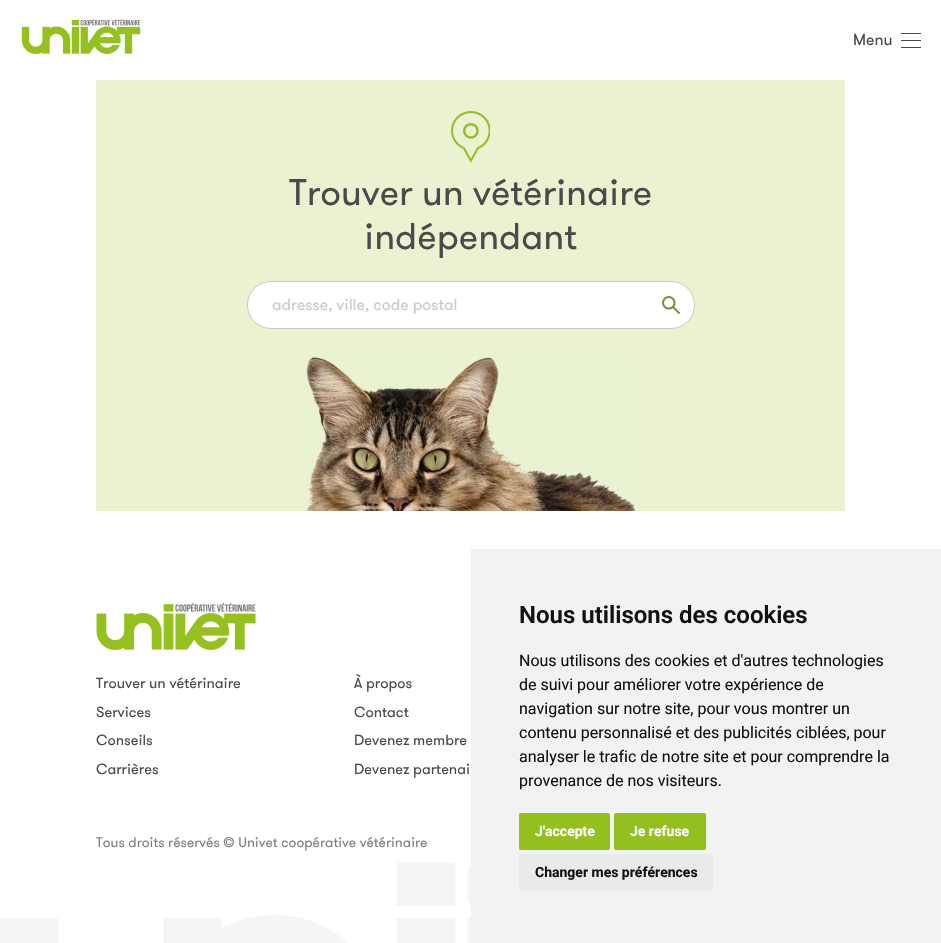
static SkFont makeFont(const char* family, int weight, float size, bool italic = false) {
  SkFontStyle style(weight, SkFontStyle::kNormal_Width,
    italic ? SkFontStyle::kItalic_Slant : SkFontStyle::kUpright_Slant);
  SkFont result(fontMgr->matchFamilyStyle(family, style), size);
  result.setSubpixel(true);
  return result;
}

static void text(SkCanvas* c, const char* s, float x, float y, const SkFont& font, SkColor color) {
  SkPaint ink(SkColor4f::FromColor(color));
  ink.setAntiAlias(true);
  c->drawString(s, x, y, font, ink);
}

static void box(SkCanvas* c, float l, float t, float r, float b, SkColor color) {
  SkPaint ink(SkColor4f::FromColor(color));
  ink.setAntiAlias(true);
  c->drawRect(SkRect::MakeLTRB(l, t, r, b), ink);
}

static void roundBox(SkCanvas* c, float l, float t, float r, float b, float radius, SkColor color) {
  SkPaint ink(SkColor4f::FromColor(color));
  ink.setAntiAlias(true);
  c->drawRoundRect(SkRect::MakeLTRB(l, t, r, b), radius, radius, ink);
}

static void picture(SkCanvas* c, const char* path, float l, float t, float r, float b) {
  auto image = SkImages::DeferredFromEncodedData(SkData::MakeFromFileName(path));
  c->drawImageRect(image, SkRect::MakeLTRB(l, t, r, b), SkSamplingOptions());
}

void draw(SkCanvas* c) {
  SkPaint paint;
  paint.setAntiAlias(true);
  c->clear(0xffffffff);
  picture(c, "img_01.png", 21, 19, 141, 54);
  SkFont face1 = makeFont("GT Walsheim", 400, 16);
  text(c, "Menu", 853, 45, face1, 0xff4a4a4a);
  box(c, 901, 33, 921, 34, 0xff4a4a4a);
  box(c, 901, 40, 921, 41, 0xff4a4a4a);
  box(c, 901, 47, 921, 48, 0xff4a4a4a);
  box(c, 96, 80, 845, 511, 0xffeaf2d2);
  picture(c, "img_02.png", 451, 111, 490, 163);
  SkFont face2 = makeFont("GT Walsheim", 400, 37);
  text(c, "Trouver un vétérinaire", 289, 205, face2, 0xff4a4a4a);
  text(c, "indépendant", 364, 249, face2, 0xff4a4a4a);
  paint.setColor(0xffffffff);
  c->drawRoundRect(SkRect::MakeLTRB(247.5f, 281.5f, 694.5f, 328.5f), 23.5f, 23.5f, paint);
  paint.setStyle(SkPaint::kStroke_Style);
  paint.setStrokeWidth(1);
  paint.setColor(0xffc9c9c9);
  c->drawRoundRect(SkRect::MakeLTRB(247.5f, 281.5f, 694.5f, 328.5f), 23.5f, 23.5f, paint);
  text(c, "adresse, ville, code postal", 272, 310, face1, 0xffc9c9c9);
  picture(c, "img_03.png", 662, 296, 680, 314);
  picture(c, "img_04.png", 306, 357, 636, 511);
  picture(c, "img_05.png", 96, 603, 256, 650);
  SkFont face3 = makeFont("GT Walsheim", 400, 14.75f);
  text(c, "Trouver un vétérinaire", 96, 688, face3, 0xff4a4a4a);
  text(c, "À propos", 354, 688, face3, 0xff4a4a4a);
  text(c, "Services", 96, 717, face3, 0xff4a4a4a);
  text(c, "Contact", 354, 717, face3, 0xff4a4a4a);
  text(c, "Conseils", 96, 745, face3, 0xff4a4a4a);
  text(c, "Devenez membre", 354, 745, face3, 0xff4a4a4a);
  text(c, "Carrières", 96, 774, face3, 0xff4a4a4a);
  text(c, "Devenez partenai", 354, 774, face3, 0xff4a4a4a);
  SkFont face4 = makeFont("GT Walsheim", 400, 14);
  text(c, "Tous droits réservés © Univet coopérative vétérinaire", 96, 847, face4, 0xff808080);
  picture(c, "img_06.png", 0, 862, 471, 943);
  box(c, 471, 549, 941, 943, 0xfff2f2f2);
  SkFont face5 = makeFont("Roboto", 600, 24);
  text(c, "Nous utilisons des cookies", 519, 623, face5, 0xff111111);
  SkFont face6 = makeFont("Roboto", 400, 16);
  text(c, "Nous utilisons des cookies et d'autres technologies", 519, 666, face6, 0xff111111);
  text(c, "de suivi pour améliorer votre expérience de", 519, 690, face6, 0xff111111);
  text(c, "navigation sur notre site, pour vous montrer un", 519, 714, face6, 0xff111111);
  text(c, "contenu personnalisé et des publicités ciblées, pour", 519, 738, face6, 0xff111111);
  text(c, "analyser le trafic de notre site et pour comprendre la", 519, 762, face6, 0xff111111);
  text(c, "provenance de nos visiteurs.", 519, 786, face6, 0xff111111);
  roundBox(c, 519, 813, 610, 850, 2, 0xff94c01f);
  SkFont face7 = makeFont("Roboto", 700, 14);
  text(c, "J'accepte", 535, 836, face7, 0xffffffff);
  roundBox(c, 614, 813, 706, 850, 2, 0xff94c01f);
  text(c, "Je refuse", 630, 836, face7, 0xffffffff);
  roundBox(c, 519, 854, 713, 891, 2, 0xffeaeaea);
  text(c, "Changer mes préférences", 535, 877, face7, 0xff111111);
}
